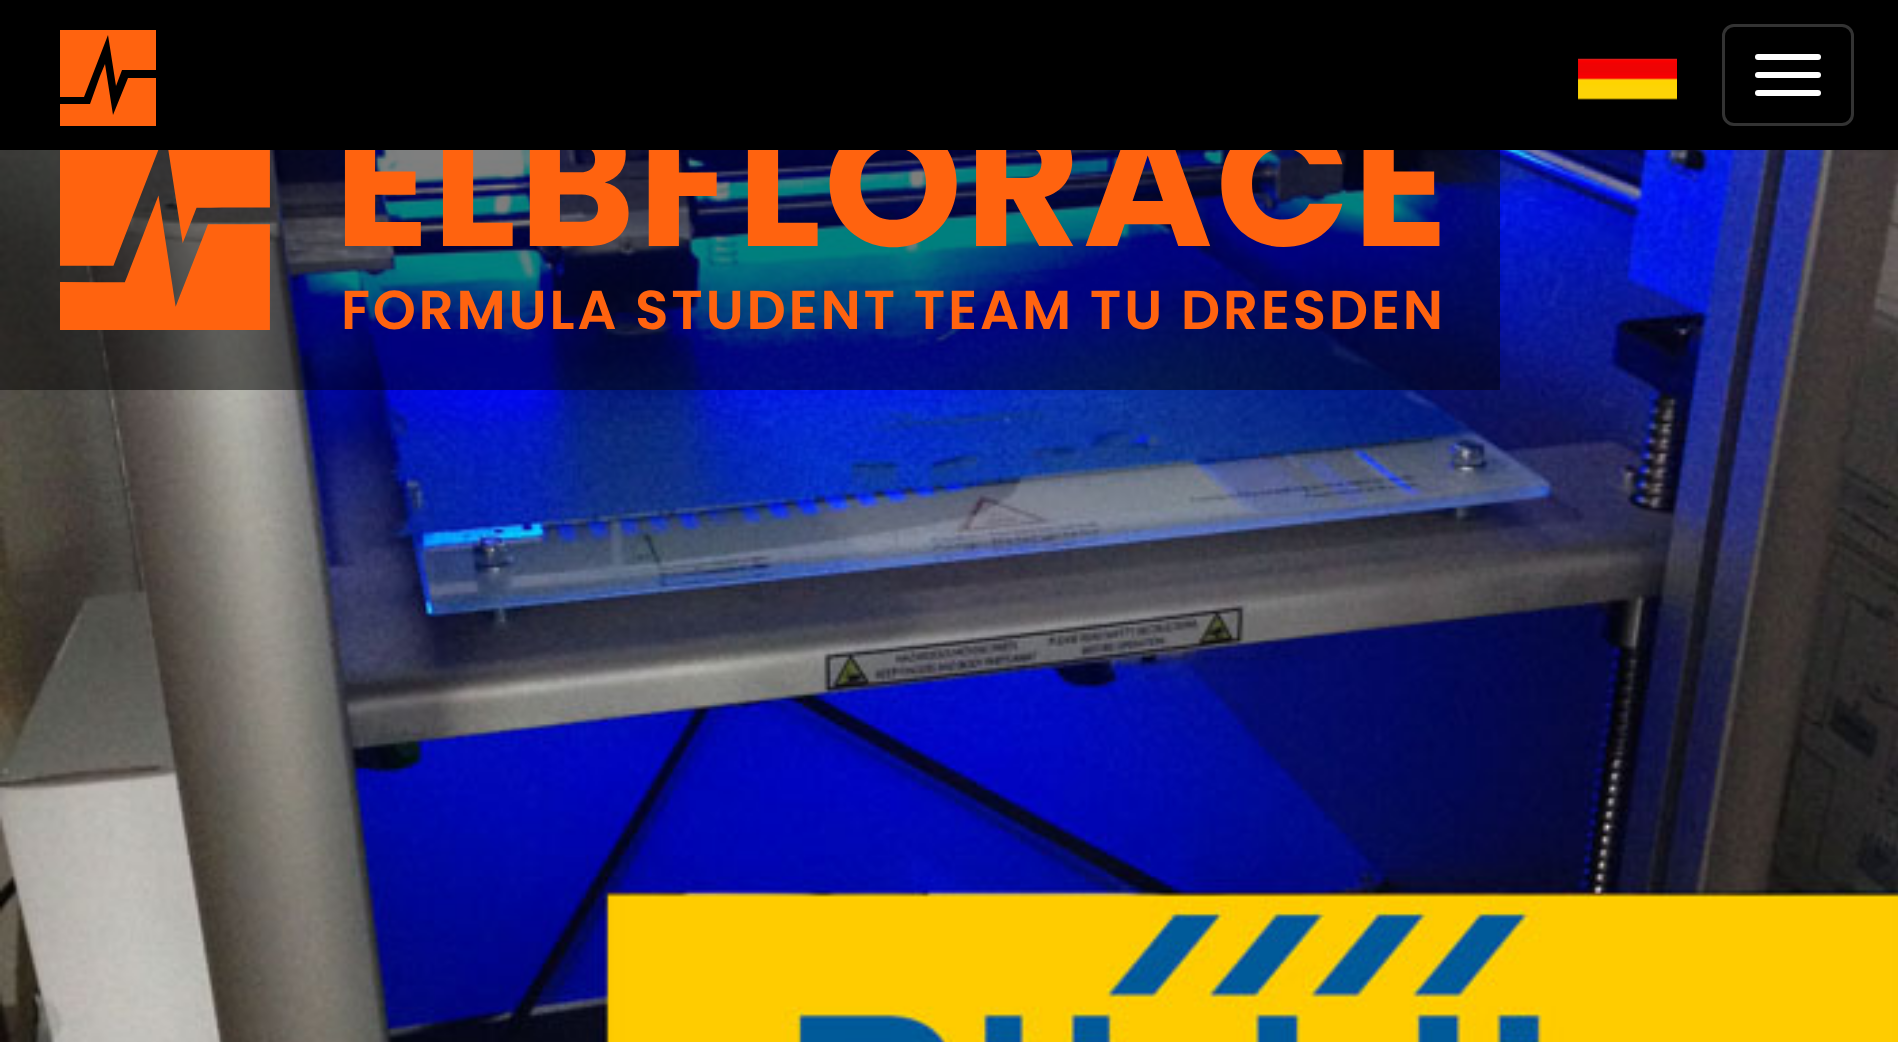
static void box(SkCanvas* c, float l, float t, float r, float b, SkColor color) {
  SkPaint ink(SkColor4f::FromColor(color));
  ink.setAntiAlias(true);
  c->drawRect(SkRect::MakeLTRB(l, t, r, b), ink);
}

static void roundBox(SkCanvas* c, float l, float t, float r, float b, float radius, SkColor color) {
  SkPaint ink(SkColor4f::FromColor(color));
  ink.setAntiAlias(true);
  c->drawRoundRect(SkRect::MakeLTRB(l, t, r, b), radius, radius, ink);
}

static void picture(SkCanvas* c, const char* path, float l, float t, float r, float b) {
  auto image = SkImages::DeferredFromEncodedData(SkData::MakeFromFileName(path));
  c->drawImageRect(image, SkRect::MakeLTRB(l, t, r, b), SkSamplingOptions());
}

void draw(SkCanvas* c) {
  SkPaint paint;
  paint.setAntiAlias(true);
  c->clear(0xffffffff);
  box(c, 0, 0, 1898, 150, 0xff000000);
  paint.setColor(0xffff630f);
  c->drawPath(SkPathBuilder().moveTo(60, 30).lineTo(60, 97).lineTo(84, 97).lineTo(108, 35).lineTo(116, 86).lineTo(122, 70).lineTo(156, 70).lineTo(156, 30).close().detach(), paint);
  c->drawPath(SkPathBuilder().moveTo(100, 76).lineTo(90, 104).lineTo(60, 104).lineTo(60, 126).lineTo(156, 126).lineTo(156, 78).lineTo(128, 78).lineTo(113, 115).lineTo(105, 64).close().detach(), paint);
  picture(c, "img_01.png", 1578, 58, 1677, 100);
  paint.setStyle(SkPaint::kStroke_Style);
  paint.setStrokeWidth(3);
  paint.setColor(0xff333333);
  c->drawRoundRect(SkRect::MakeLTRB(1723.5f, 25.5f, 1852.5f, 124.5f), 10.5f, 10.5f, paint);
  roundBox(c, 1755, 54, 1821, 60, 3, 0xffffffff);
  roundBox(c, 1755, 72, 1821, 78, 3, 0xffffffff);
  roundBox(c, 1755, 90, 1821, 96, 3, 0xffffffff);
  picture(c, "img_02.png", 0, 150, 1898, 1042);
  box(c, 0, 150, 1500, 390, 0x80000000);
  picture(c, "img_03.png", 60, 150, 1440, 330);
}
